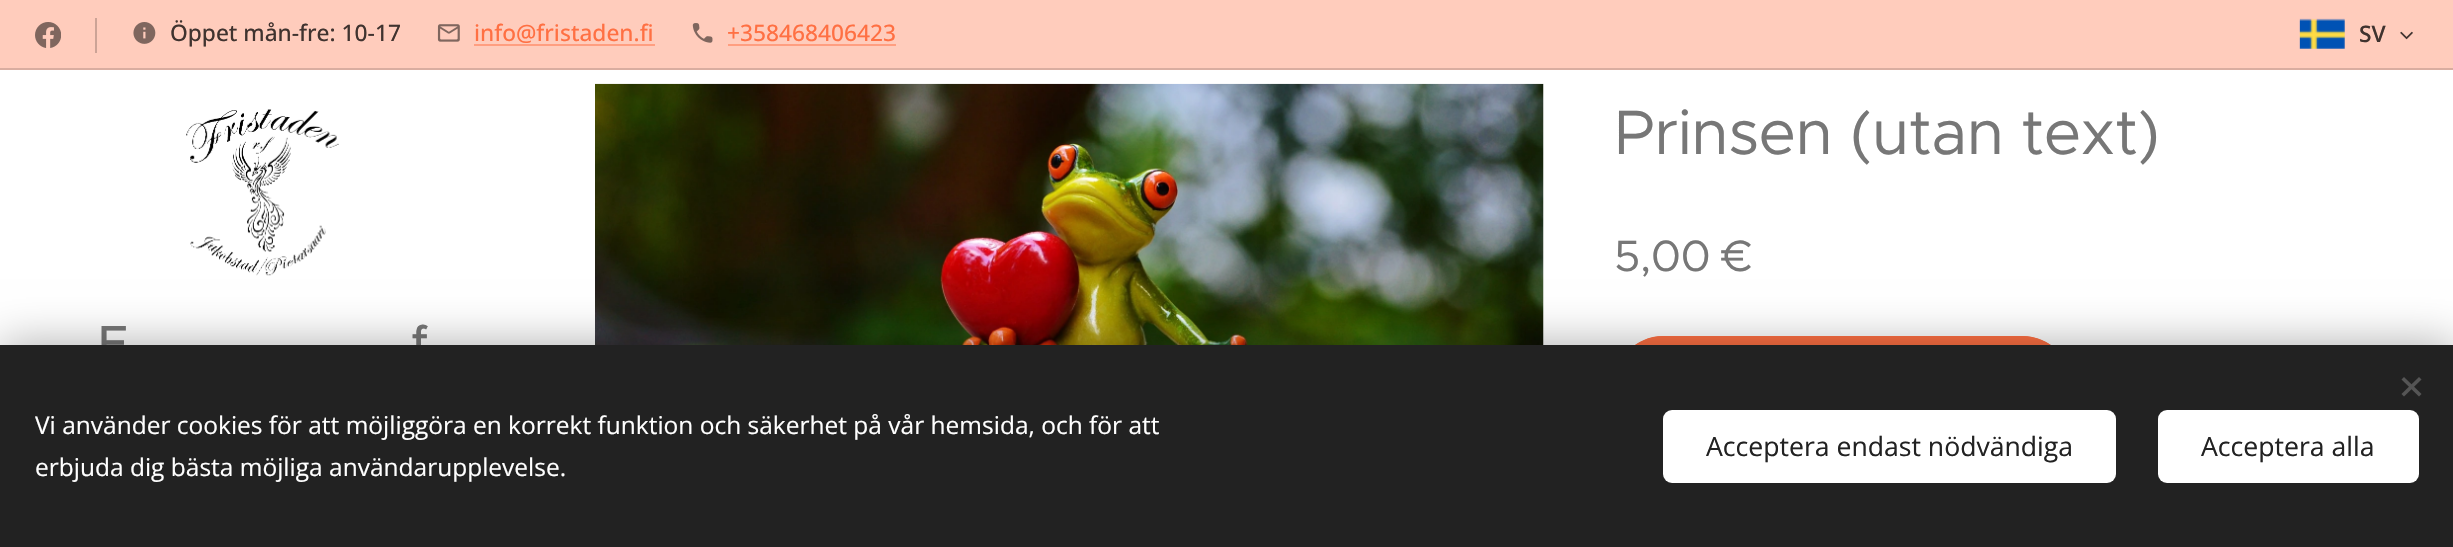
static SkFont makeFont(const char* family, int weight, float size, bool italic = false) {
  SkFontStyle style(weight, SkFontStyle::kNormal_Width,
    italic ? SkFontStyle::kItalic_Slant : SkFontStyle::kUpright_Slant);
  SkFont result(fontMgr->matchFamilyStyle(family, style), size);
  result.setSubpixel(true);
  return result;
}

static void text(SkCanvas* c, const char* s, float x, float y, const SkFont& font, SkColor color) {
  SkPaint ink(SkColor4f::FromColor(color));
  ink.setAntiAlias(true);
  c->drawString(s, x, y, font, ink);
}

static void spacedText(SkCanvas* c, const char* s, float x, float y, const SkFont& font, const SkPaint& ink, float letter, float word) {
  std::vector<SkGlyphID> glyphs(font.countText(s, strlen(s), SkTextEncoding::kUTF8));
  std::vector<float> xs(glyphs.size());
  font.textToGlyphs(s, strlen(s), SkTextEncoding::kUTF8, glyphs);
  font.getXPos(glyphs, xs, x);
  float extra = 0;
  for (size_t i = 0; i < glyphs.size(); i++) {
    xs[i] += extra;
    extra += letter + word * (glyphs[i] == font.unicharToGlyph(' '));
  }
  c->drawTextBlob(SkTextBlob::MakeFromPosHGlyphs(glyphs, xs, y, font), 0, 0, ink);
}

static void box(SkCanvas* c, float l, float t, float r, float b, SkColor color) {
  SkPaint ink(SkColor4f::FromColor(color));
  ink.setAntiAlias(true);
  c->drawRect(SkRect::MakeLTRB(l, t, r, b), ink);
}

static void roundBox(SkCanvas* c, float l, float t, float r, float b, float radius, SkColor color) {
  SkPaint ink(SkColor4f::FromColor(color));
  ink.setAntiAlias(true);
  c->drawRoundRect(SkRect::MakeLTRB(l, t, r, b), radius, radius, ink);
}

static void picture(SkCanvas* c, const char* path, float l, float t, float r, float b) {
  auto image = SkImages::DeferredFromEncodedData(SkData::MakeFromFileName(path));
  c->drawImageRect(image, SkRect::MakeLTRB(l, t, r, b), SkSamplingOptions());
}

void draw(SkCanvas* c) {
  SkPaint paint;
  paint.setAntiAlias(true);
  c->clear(0xffffffff);
  box(c, 0, 0, 2453, 68, 0xffffccbc);
  picture(c, "img_01.png", 35, 22, 61, 48);
  box(c, 95, 18, 97, 53, 0xffcca396);
  picture(c, "img_02.png", 133, 22, 156, 44);
  SkFont face1 = makeFont("Open Sans", 500, 22.75f);
  text(c, "Öppet mån-fre: 10-17", 170, 41, face1, 0xff40332f);
  picture(c, "img_03.png", 437, 24, 460, 42);
  text(c, "info@fristaden.fi", 474, 41, face1, 0xffff7043);
  box(c, 474, 44, 655, 46, 0xffff9e80);
  picture(c, "img_04.png", 692, 23, 713, 43);
  text(c, "+358468406423", 727, 41, face1, 0xffff7043);
  box(c, 728, 44, 896, 46, 0xffff9e80);
  picture(c, "img_05.png", 2299, 18, 2345, 49);
  SkFont face2 = makeFont("Open Sans", 600, 22.75f);
  text(c, "SV", 2359, 42, face2, 0xff40332f);
  picture(c, "img_06.png", 2400, 31, 2413, 40);
  box(c, 0, 68, 2453, 70, 0xffd9ada0);
  picture(c, "img_07.png", 186, 109, 339, 276);
  SkFont face3 = makeFont("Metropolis", 500, 48);
  paint.setColor(0xff777777);
  spacedText(c, "F", 98, 359, face3, paint, -0.6f, 0);
  spacedText(c, "f", 411, 359, face3, paint, -0.6f, 0);
  picture(c, "img_08.png", 595, 83, 1544, 345);
  SkFont face4 = makeFont("Metropolis", 400, 63);
  spacedText(c, "Prinsen (utan text)", 1614, 154, face4, paint, -0.6f, 0);
  SkFont face5 = makeFont("Metropolis", 400, 44);
  spacedText(c, "5,00 €", 1614, 271, face5, paint, -0.6f, 0);
  roundBox(c, 1614, 336, 2072, 436, 50, 0xffff7043);
  paint.setColor(0xffff7043);
  c->drawPath(SkPathBuilder().moveTo(1663, 336).cubicTo(1649, 336, 1637, 342, 1628, 351).lineTo(1629, 352).cubicTo(1638, 343, 1650, 338, 1663, 338).lineTo(2022, 338).cubicTo(2036, 338, 2048, 343, 2056, 352).lineTo(2058, 350).cubicTo(2048, 342, 2036, 336, 2022, 336).close().detach(), paint);
  paint.setColor(0x54000000);
  paint.setMaskFilter(SkMaskFilter::MakeBlur(kNormal_SkBlurStyle, 22));
  c->drawRect(SkRect::MakeLTRB(0, 345, 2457, 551), paint);
  paint.setMaskFilter(nullptr);
  box(c, 0, 345, 2453, 547, 0xff222222);
  paint.setColor(0xff555555);
  c->drawPath(SkPathBuilder().moveTo(2401.5f, 394).lineTo(2419, 377).lineTo(2421.5f, 379.5f).lineTo(2404, 396.5f).close().detach(), paint);
  c->drawPath(SkPathBuilder().moveTo(2404, 377).lineTo(2421.5f, 394).lineTo(2419, 396.5f).lineTo(2401.5f, 379.5f).close().detach(), paint);
  SkFont face6 = makeFont("Open Sans", 400, 24.5f);
  text(c, "Vi använder cookies för att möjliggöra en korrekt funktion och säkerhet på vår hemsida, och för att", 35, 434, face6, 0xffffffff);
  text(c, "erbjuda dig bästa möjliga användarupplevelse.", 35, 476, face6, 0xffffffff);
  roundBox(c, 1663, 410, 2116, 483, 9, 0xffffffff);
  SkFont face7 = makeFont("Open Sans", 400, 26.6f);
  text(c, "Acceptera endast nödvändiga", 1706, 456, face7, 0xff222222);
  roundBox(c, 2158, 410, 2419, 483, 9, 0xffffffff);
  text(c, "Acceptera alla", 2201, 456, face7, 0xff222222);
}
